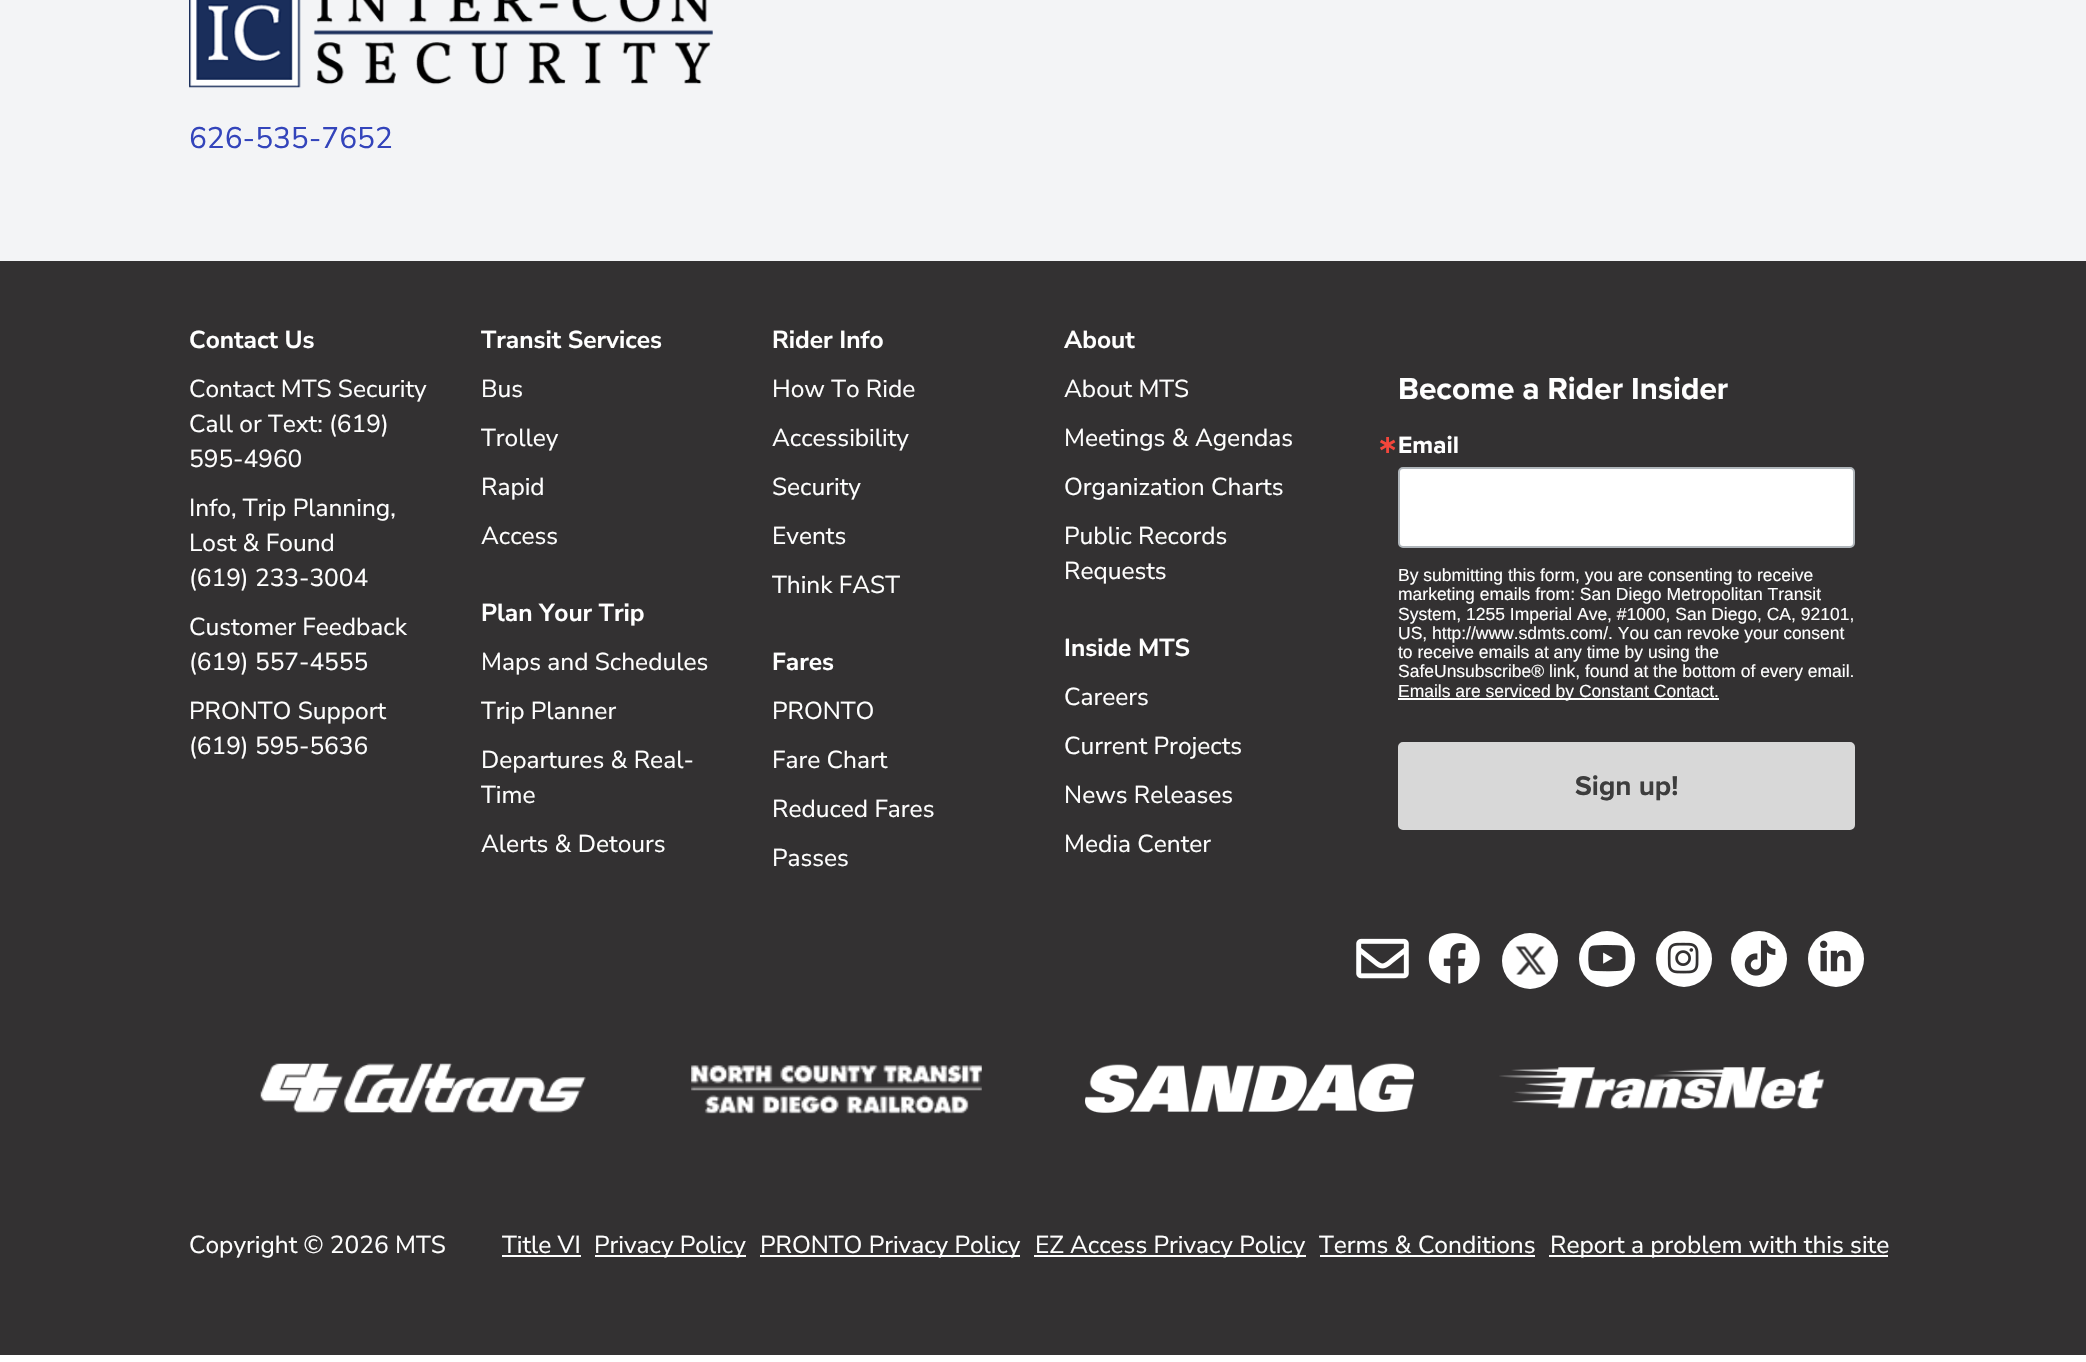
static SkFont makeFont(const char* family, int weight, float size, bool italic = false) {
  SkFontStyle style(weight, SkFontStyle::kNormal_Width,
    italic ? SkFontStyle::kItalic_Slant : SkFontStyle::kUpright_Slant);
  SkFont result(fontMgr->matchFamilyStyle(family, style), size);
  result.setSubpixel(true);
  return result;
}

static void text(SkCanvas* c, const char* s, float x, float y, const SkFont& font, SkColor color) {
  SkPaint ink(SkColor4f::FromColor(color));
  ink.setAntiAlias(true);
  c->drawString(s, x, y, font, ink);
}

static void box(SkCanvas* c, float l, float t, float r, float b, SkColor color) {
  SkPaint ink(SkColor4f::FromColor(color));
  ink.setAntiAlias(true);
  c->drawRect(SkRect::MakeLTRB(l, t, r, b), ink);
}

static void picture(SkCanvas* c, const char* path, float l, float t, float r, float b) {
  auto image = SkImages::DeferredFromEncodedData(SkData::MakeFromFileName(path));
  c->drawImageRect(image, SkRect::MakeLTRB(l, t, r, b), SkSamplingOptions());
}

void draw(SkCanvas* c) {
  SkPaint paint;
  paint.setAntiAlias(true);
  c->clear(0xffffffff);
  box(c, 0, 0, 2086, 261, 0xfff3f4f6);
  picture(c, "img_01.png", 189, 0, 713, 88);
  SkFont face1 = makeFont("Nunito Sans", 400, 29.75f);
  text(c, "626-535-7652", 189, 148, face1, 0xff3344bb);
  box(c, 0, 261, 2086, 1355, 0xff333132);
  SkFont face2 = makeFont("Nunito Sans", 700, 24.5f);
  text(c, "Contact Us", 189, 348, face2, 0xffffffff);
  SkFont face3 = makeFont("Nunito Sans", 400, 24.5f);
  text(c, "Contact MTS Security", 189, 397, face3, 0xffffffff);
  text(c, "Call or Text: (619)", 189, 432, face3, 0xffffffff);
  text(c, "595-4960", 189, 467, face3, 0xffffffff);
  text(c, "Info, Trip Planning,", 189, 516, face3, 0xffffffff);
  text(c, "Lost & Found", 189, 551, face3, 0xffffffff);
  text(c, "(619) 233-3004", 189, 586, face3, 0xffffffff);
  text(c, "Customer Feedback", 189, 635, face3, 0xffffffff);
  text(c, "(619) 557-4555", 189, 670, face3, 0xffffffff);
  text(c, "PRONTO Support", 189, 719, face3, 0xffffffff);
  text(c, "(619) 595-5636", 189, 754, face3, 0xffffffff);
  text(c, "Transit Services", 481, 348, face2, 0xffffffff);
  text(c, "Bus", 481, 397, face3, 0xffffffff);
  text(c, "Trolley", 481, 446, face3, 0xffffffff);
  text(c, "Rapid", 481, 495, face3, 0xffffffff);
  text(c, "Access", 481, 544, face3, 0xffffffff);
  text(c, "Plan Your Trip", 481, 621, face2, 0xffffffff);
  text(c, "Maps and Schedules", 481, 670, face3, 0xffffffff);
  text(c, "Trip Planner", 481, 719, face3, 0xffffffff);
  text(c, "Departures & Real-", 481, 768, face3, 0xffffffff);
  text(c, "Time", 481, 803, face3, 0xffffffff);
  text(c, "Alerts & Detours", 481, 852, face3, 0xffffffff);
  text(c, "Rider Info", 772, 348, face2, 0xffffffff);
  text(c, "How To Ride", 772, 397, face3, 0xffffffff);
  text(c, "Accessibility", 772, 446, face3, 0xffffffff);
  text(c, "Security", 772, 495, face3, 0xffffffff);
  text(c, "Events", 772, 544, face3, 0xffffffff);
  text(c, "Think FAST", 772, 593, face3, 0xffffffff);
  text(c, "Fares", 772, 670, face2, 0xffffffff);
  text(c, "PRONTO", 772, 719, face3, 0xffffffff);
  text(c, "Fare Chart", 772, 768, face3, 0xffffffff);
  text(c, "Reduced Fares", 772, 817, face3, 0xffffffff);
  text(c, "Passes", 772, 866, face3, 0xffffffff);
  text(c, "About", 1064, 348, face2, 0xffffffff);
  text(c, "About MTS", 1064, 397, face3, 0xffffffff);
  text(c, "Meetings & Agendas", 1064, 446, face3, 0xffffffff);
  text(c, "Organization Charts", 1064, 495, face3, 0xffffffff);
  text(c, "Public Records", 1064, 544, face3, 0xffffffff);
  text(c, "Requests", 1064, 579, face3, 0xffffffff);
  text(c, "Inside MTS", 1064, 656, face2, 0xffffffff);
  text(c, "Careers", 1064, 705, face3, 0xffffffff);
  text(c, "Current Projects", 1064, 754, face3, 0xffffffff);
  text(c, "News Releases", 1064, 803, face3, 0xffffffff);
  text(c, "Media Center", 1064, 852, face3, 0xffffffff);
  SkFont face4 = makeFont("Proxima Nova", 700, 31.5f);
  text(c, "Become a Rider Insider", 1398, 399, face4, 0xffffffff);
  SkFont face5 = makeFont("DejaVu Sans", 700, 24.5f);
  text(c, "∗", 1377, 453, face5, 0xfff5463b);
  SkFont face6 = makeFont("Proxima Nova", 700, 24.5f);
  text(c, "Email", 1398, 453, face6, 0xffffffff);
  paint.setColor(0xffffffff);
  c->drawRoundRect(SkRect::MakeLTRB(1399, 468, 1854, 547), 4, 4, paint);
  paint.setStyle(SkPaint::kStroke_Style);
  paint.setStrokeWidth(2);
  paint.setColor(0xffb0b6bb);
  c->drawRoundRect(SkRect::MakeLTRB(1399, 468, 1854, 547), 4, 4, paint);
  SkFont face7 = makeFont("Liberation Sans", 400, 17.5f);
  text(c, "By submitting this form, you are consenting to receive", 1398, 581, face7, 0xffffffff);
  text(c, "marketing emails from: San Diego Metropolitan Transit", 1398, 600, face7, 0xffffffff);
  text(c, "System, 1255 Imperial Ave, #1000, San Diego, CA, 92101,", 1398, 620, face7, 0xffffffff);
  text(c, "US, http://www.sdmts.com/. You can revoke your consent", 1398, 639, face7, 0xffffffff);
  text(c, "to receive emails at any time by using the", 1398, 658, face7, 0xffffffff);
  text(c, "SafeUnsubscribe® link, found at the bottom of every email.", 1398, 677, face7, 0xffffffff);
  box(c, 1398, 698, 1719, 700, 0xffffffff);
  text(c, "Emails are serviced by Constant Contact.", 1398, 697, face7, 0xffffffff);
  paint.setStyle(SkPaint::kFill_Style);
  paint.setColor(0xffd8d8d8);
  c->drawRoundRect(SkRect::MakeLTRB(1399, 743, 1854, 829), 4, 4, paint);
  paint.setStyle(SkPaint::kStroke_Style);
  c->drawRoundRect(SkRect::MakeLTRB(1399, 743, 1854, 829), 4, 4, paint);
  SkFont face8 = makeFont("Proxima Nova", 700, 28);
  text(c, "Sign up!", 1575, 795, face8, 0xff3d3d3d);
  picture(c, "img_02.png", 1356, 938, 1409, 979);
  picture(c, "img_03.png", 1428, 933, 1480, 984);
  paint.setStyle(SkPaint::kFill_Style);
  paint.setColor(0xffffffff);
  c->drawCircle(1530, 961, 28, paint);
  picture(c, "img_04.png", 1515, 946, 1546, 975);
  c->drawCircle(1607, 959, 28, paint);
  picture(c, "img_05.png", 1588, 945, 1626, 972);
  c->drawCircle(1684, 959, 28, paint);
  picture(c, "img_06.png", 1667, 942, 1699, 974);
  c->drawCircle(1759, 959, 28, paint);
  picture(c, "img_07.png", 1744, 940, 1776, 976);
  c->drawCircle(1836, 959, 28, paint);
  picture(c, "img_08.png", 1820, 940, 1851, 972);
  picture(c, "img_09.png", 260, 1063, 586, 1114);
  picture(c, "img_10.png", 691, 1065, 982, 1114);
  picture(c, "img_11.png", 1085, 1063, 1414, 1113);
  picture(c, "img_12.png", 1499, 1067, 1825, 1110);
  text(c, "Copyright © 2026 MTS", 189, 1253, face3, 0xffffffff);
  text(c, "Title VI", 502, 1253, face3, 0xffffffff);
  box(c, 502, 1255, 581, 1257, 0xffffffff);
  box(c, 595, 1255, 746, 1257, 0xffffffff);
  text(c, "Privacy Policy", 594, 1253, face3, 0xffffffff);
  box(c, 760, 1255, 1020, 1257, 0xffffffff);
  text(c, "PRONTO Privacy Policy", 760, 1253, face3, 0xffffffff);
  box(c, 1034, 1255, 1306, 1257, 0xffffffff);
  text(c, "EZ Access Privacy Policy", 1035, 1253, face3, 0xffffffff);
  text(c, "Terms & Conditions", 1319, 1253, face3, 0xffffffff);
  box(c, 1320, 1255, 1535, 1257, 0xffffffff);
  box(c, 1549, 1255, 1888, 1257, 0xffffffff);
  text(c, "Report a problem with this site", 1550, 1253, face3, 0xffffffff);
}
